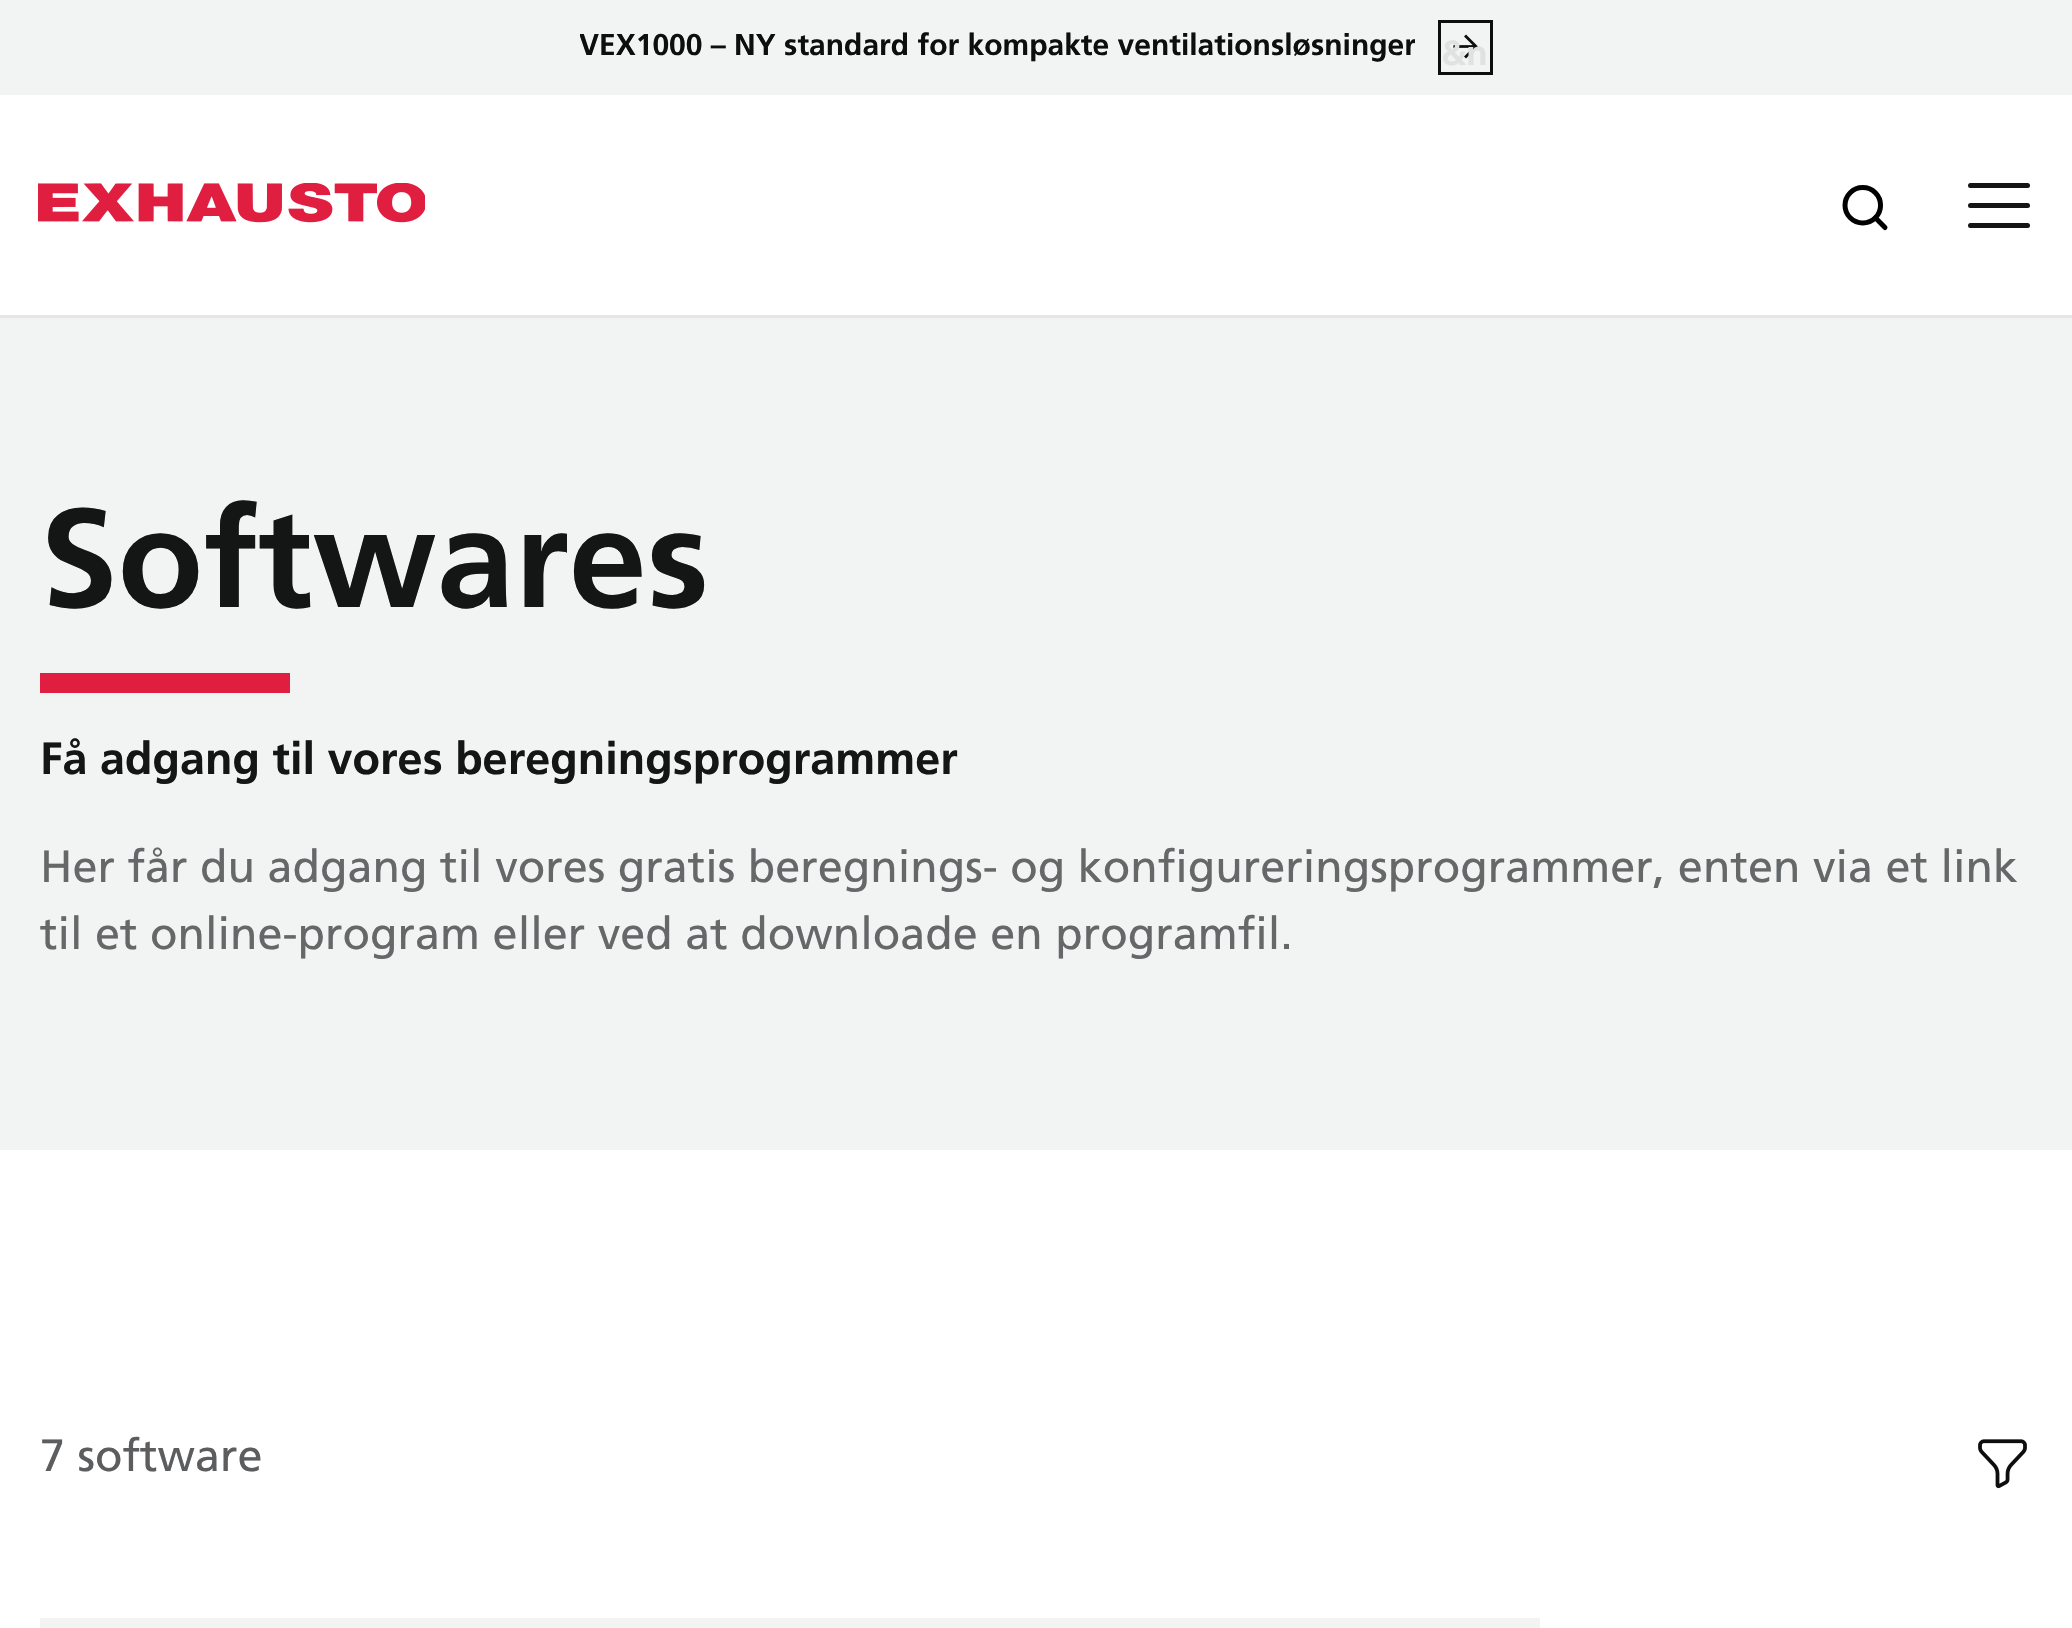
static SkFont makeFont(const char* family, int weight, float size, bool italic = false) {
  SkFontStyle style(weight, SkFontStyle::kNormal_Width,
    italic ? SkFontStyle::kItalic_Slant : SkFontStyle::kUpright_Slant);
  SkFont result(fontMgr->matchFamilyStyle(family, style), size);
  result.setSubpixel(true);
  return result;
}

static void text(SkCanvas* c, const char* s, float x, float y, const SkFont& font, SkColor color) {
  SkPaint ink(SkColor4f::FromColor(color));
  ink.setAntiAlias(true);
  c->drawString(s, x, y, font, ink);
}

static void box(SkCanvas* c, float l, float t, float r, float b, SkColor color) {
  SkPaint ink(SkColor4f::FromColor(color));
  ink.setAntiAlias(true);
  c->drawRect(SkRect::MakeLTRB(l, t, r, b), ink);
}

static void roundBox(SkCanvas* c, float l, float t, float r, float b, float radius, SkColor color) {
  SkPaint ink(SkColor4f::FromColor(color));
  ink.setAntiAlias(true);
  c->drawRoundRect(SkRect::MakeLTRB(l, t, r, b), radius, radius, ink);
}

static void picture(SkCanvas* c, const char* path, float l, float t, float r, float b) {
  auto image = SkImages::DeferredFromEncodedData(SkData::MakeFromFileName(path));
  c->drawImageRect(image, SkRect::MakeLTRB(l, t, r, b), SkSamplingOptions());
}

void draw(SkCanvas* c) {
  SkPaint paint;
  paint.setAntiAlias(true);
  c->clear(0xffffffff);
  box(c, 0, 0, 2072, 95, 0xfff2f3f3);
  c->save();
  c->clipRect(SkRect::MakeLTRB(580, 25, 1415, 70));
  SkFont face1 = makeFont("Frutiger", 700, 30);
  text(c, "VEX1000 – NY standard for kompakte ventilationsløsninger", 579, 55, face1, 0xff0d0e0e);
  c->restore();
  paint.setStyle(SkPaint::kStroke_Style);
  paint.setStrokeWidth(3);
  paint.setColor(0xff0d0e0e);
  c->drawRect(SkRect::MakeLTRB(1439.5f, 21.5f, 1491.5f, 73.5f), paint);
  picture(c, "img_01.png", 1453, 34, 1478, 59);
  SkFont face2 = makeFont("Frutiger", 700, 35);
  text(c, "&n", 1441, 65, face2, 0xffe0e1e1);
  box(c, 0, 315, 2072, 318, 0xffe5e6e6);
  picture(c, "img_02.png", 38, 183, 425, 223);
  picture(c, "img_03.png", 1842, 185, 1888, 231);
  roundBox(c, 1968, 183, 2030, 188, 2.5f, 0xff141515);
  roundBox(c, 1968, 203, 2030, 208, 2.5f, 0xff141515);
  roundBox(c, 1968, 223, 2030, 228, 2.5f, 0xff141515);
  box(c, 0, 318, 2072, 1150, 0xfff2f3f3);
  SkFont face3 = makeFont("Frutiger", 700, 140);
  text(c, "Softwares", 40, 607, face3, 0xff141515);
  box(c, 40, 673, 290, 693, 0xffdf1e40);
  SkFont face4 = makeFont("Frutiger", 700, 45);
  text(c, "Få adgang til vores beregningsprogrammer", 40, 774, face4, 0xff141515);
  SkFont face5 = makeFont("Frutiger", 400, 45);
  text(c, "Her får du adgang til vores gratis beregnings- og konfigureringsprogrammer, enten via et link", 40, 882, face5, 0xff646868);
  text(c, "til et online-program eller ved at downloade en programfil.", 40, 949, face5, 0xff646868);
  text(c, "7 software", 40, 1471, face5, 0xff5c5d5f);
  picture(c, "img_04.png", 1978, 1439, 2027, 1489);
  box(c, 40, 1618, 1540, 1628, 0xfff2f3f3);
}
